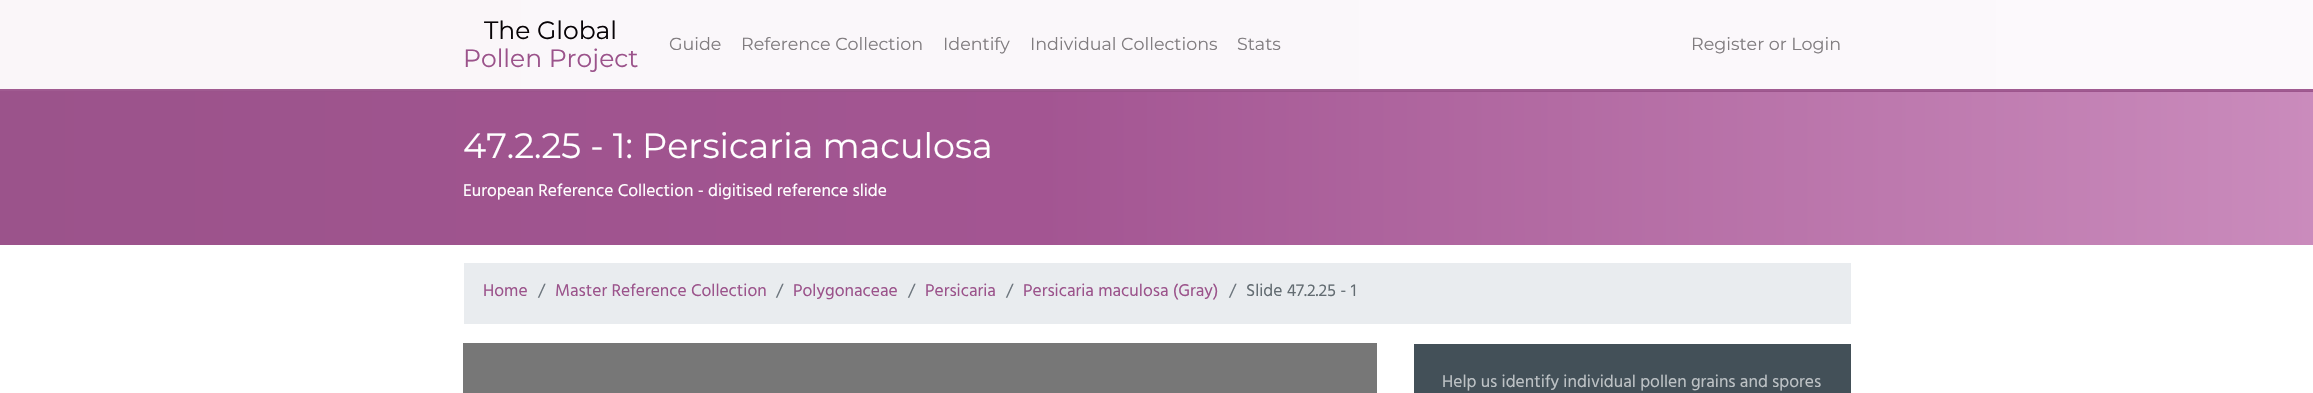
static SkFont makeFont(const char* family, int weight, float size, bool italic = false) {
  SkFontStyle style(weight, SkFontStyle::kNormal_Width,
    italic ? SkFontStyle::kItalic_Slant : SkFontStyle::kUpright_Slant);
  SkFont result(fontMgr->matchFamilyStyle(family, style), size);
  result.setSubpixel(true);
  return result;
}

static void text(SkCanvas* c, const char* s, float x, float y, const SkFont& font, SkColor color) {
  SkPaint ink(SkColor4f::FromColor(color));
  ink.setAntiAlias(true);
  c->drawString(s, x, y, font, ink);
}

static void box(SkCanvas* c, float l, float t, float r, float b, SkColor color) {
  SkPaint ink(SkColor4f::FromColor(color));
  ink.setAntiAlias(true);
  c->drawRect(SkRect::MakeLTRB(l, t, r, b), ink);
}

void draw(SkCanvas* c) {
  SkPaint paint;
  paint.setAntiAlias(true);
  c->clear(0xffffffff);
  {
    const SkColor colors[] = {0xfffaf6f9, 0xfffaf7fa, 0xfffcf9fc};
    const float stops[] = {0, 0.45f, 1};
    const SkPoint ends[] = {{0, 123}, {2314, 122}};
    paint.setShader(SkGradientShader::MakeLinear(ends, colors, stops, 3, SkTileMode::kClamp));
    paint.setAlpha(255);
  }
  c->drawRect(SkRect::MakeLTRB(0, 0, 2313, 89), paint);
  SkFont face1 = makeFont("Montserrat", 400, 25);
  text(c, "The Global", 484, 39, face1, 0xff080407);
  text(c, "Pollen Project", 463, 67, face1, 0xff9b538b);
  SkFont face2 = makeFont("Montserrat", 400, 17.5f);
  text(c, "Guide", 669, 50, face2, 0xff817d80);
  text(c, "Reference Collection", 741, 50, face2, 0xff817d80);
  text(c, "Identify", 943, 50, face2, 0xff817d80);
  text(c, "Individual Collections", 1030, 50, face2, 0xff817d80);
  text(c, "Stats", 1237, 50, face2, 0xff817d80);
  text(c, "Register or Login", 1691, 50, face2, 0xff817d80);
  {
    const SkColor colors[] = {0xff9b538b, 0xffa35592, 0xffca8bbc};
    const float stops[] = {0, 0.45f, 1};
    const SkPoint ends[] = {{0, 123}, {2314, 122}};
    paint.setShader(SkGradientShader::MakeLinear(ends, colors, stops, 3, SkTileMode::kClamp));
    paint.setAlpha(255);
  }
  c->drawRect(SkRect::MakeLTRB(0, 92, 2313, 245), paint);
  {
    const SkColor colors[] = {0xff9b538b, 0xff9b538b, 0xff9d568d};
    const float stops[] = {0, 0.45f, 1};
    const SkPoint ends[] = {{0, 123}, {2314, 122}};
    paint.setShader(SkGradientShader::MakeLinear(ends, colors, stops, 3, SkTileMode::kClamp));
    paint.setAlpha(255);
  }
  c->drawRect(SkRect::MakeLTRB(0, 91, 2313, 92), paint);
  {
    const SkColor colors[] = {0xffa05b91, 0xffa05b91, 0xffa05b91};
    const float stops[] = {0, 0.45f, 1};
    const SkPoint ends[] = {{0, 123}, {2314, 122}};
    paint.setShader(SkGradientShader::MakeLinear(ends, colors, stops, 3, SkTileMode::kClamp));
    paint.setAlpha(255);
  }
  c->drawRect(SkRect::MakeLTRB(0, 89, 2313, 91), paint);
  SkFont face3 = makeFont("Montserrat", 400, 35);
  text(c, "47.2.25 - 1: Persicaria maculosa", 463, 158, face3, 0xffffffff);
  SkFont face4 = makeFont("Hind", 400, 17.5f);
  text(c, "European Reference Collection - digitised reference slide", 463, 196, face4, 0xffffffff);
  box(c, 464, 263, 1851, 324, 0xffe9ecef);
  text(c, "Home", 483, 296, face4, 0xff9b538b);
  text(c, "/", 538, 296, face4, 0xff6c757d);
  text(c, "Master Reference Collection", 555, 296, face4, 0xff9b538b);
  text(c, "/", 776, 296, face4, 0xff6c757d);
  text(c, "Polygonaceae", 793, 296, face4, 0xff9b538b);
  text(c, "/", 908, 296, face4, 0xff6c757d);
  text(c, "Persicaria", 925, 296, face4, 0xff9b538b);
  text(c, "/", 1006, 296, face4, 0xff6c757d);
  text(c, "Persicaria maculosa (Gray)", 1023, 296, face4, 0xff9b538b);
  text(c, "/", 1229, 296, face4, 0xff6c757d);
  text(c, "Slide 47.2.25 - 1", 1246, 296, face4, 0xff636c72);
  box(c, 463, 343, 1377, 393, 0xff777777);
  box(c, 1414, 344, 1851, 393, 0xff435058);
  text(c, "Help us identify individual pollen grains and spores", 1442, 387, face4, 0xffbdc2c5);
}
